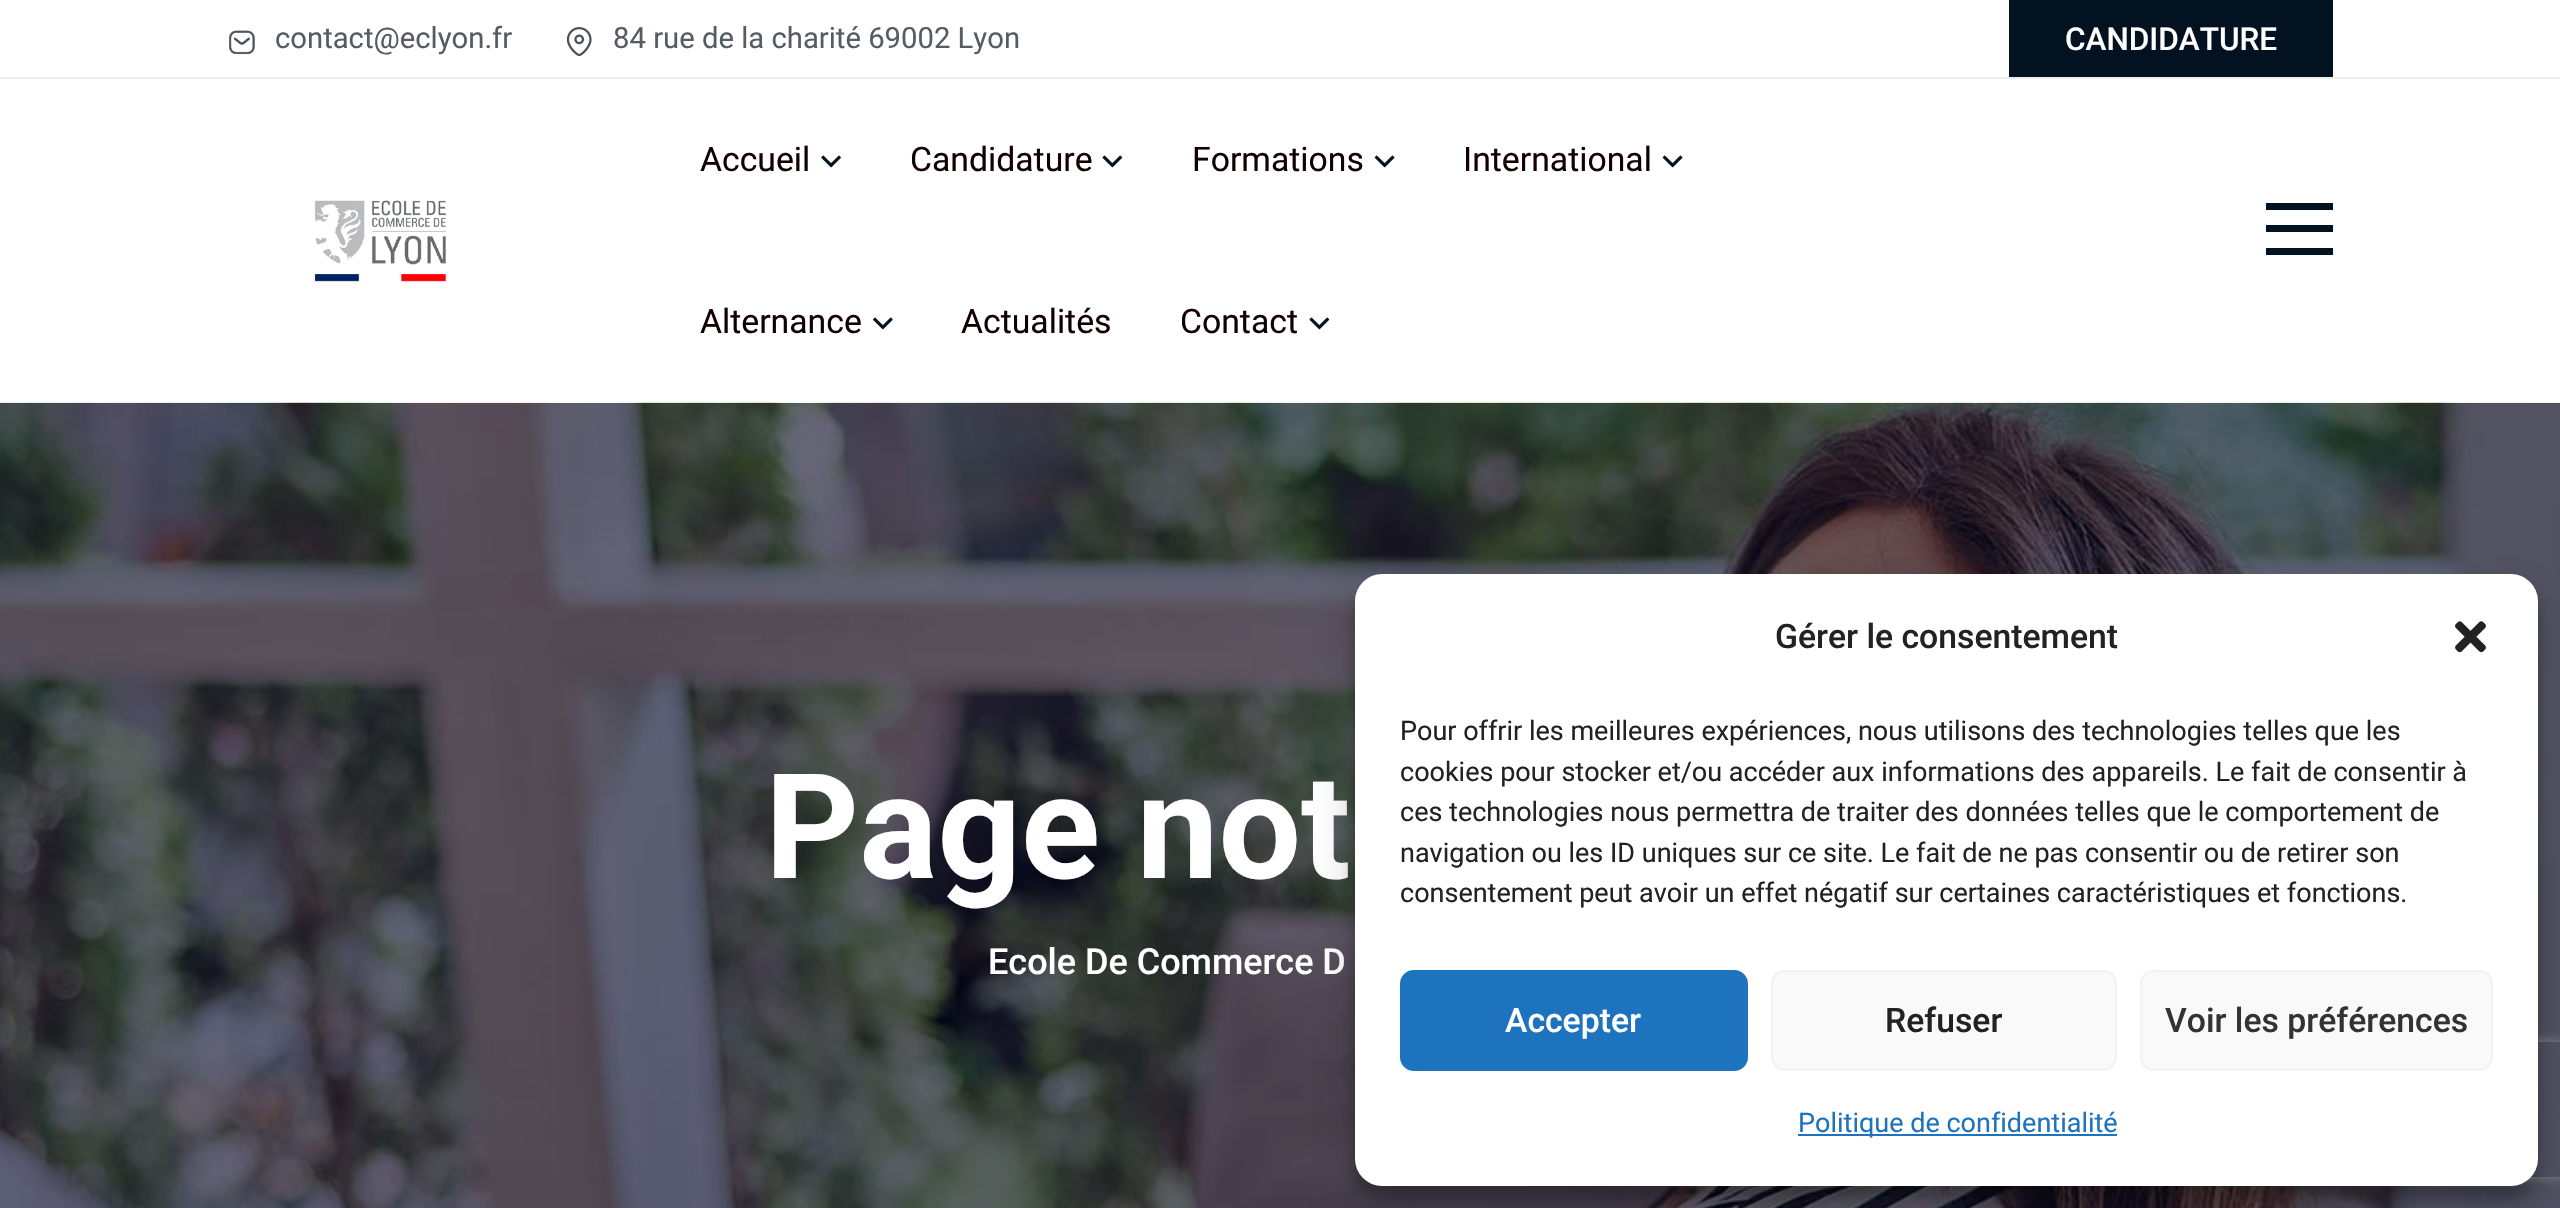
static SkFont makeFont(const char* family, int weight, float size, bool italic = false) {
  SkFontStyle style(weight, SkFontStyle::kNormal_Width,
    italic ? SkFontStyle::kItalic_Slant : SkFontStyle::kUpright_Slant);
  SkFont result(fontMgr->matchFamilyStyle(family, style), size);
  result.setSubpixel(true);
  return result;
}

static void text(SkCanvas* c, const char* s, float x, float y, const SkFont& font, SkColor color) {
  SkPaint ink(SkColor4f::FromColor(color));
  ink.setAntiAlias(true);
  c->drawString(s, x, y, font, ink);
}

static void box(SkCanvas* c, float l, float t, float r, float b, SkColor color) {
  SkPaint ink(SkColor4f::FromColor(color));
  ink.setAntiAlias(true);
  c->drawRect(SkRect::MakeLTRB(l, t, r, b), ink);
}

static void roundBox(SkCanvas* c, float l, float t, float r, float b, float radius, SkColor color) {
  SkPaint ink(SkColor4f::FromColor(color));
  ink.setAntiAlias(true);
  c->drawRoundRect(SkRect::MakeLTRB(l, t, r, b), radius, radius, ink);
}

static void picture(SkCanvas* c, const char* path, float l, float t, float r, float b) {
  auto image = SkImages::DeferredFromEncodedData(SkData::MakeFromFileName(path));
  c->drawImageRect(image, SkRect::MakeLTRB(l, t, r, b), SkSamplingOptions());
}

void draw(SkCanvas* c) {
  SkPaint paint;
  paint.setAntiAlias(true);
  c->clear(0xffffffff);
  box(c, 0, 77, 2560, 79, 0xffedeeef);
  picture(c, "img_01.png", 229, 30, 255, 55);
  SkFont face1 = makeFont("Roboto", 400, 29.25f);
  text(c, "contact@eclyon.fr", 275, 48, face1, 0xff555c63);
  picture(c, "img_02.png", 566, 27, 592, 56);
  text(c, "84 rue de la charité 69002 Lyon", 613, 48, face1, 0xff555c63);
  box(c, 2009, 0, 2333, 77, 0xff031220);
  SkFont face2 = makeFont("Roboto", 500, 31.5f);
  text(c, "CANDIDATURE", 2065, 50, face2, 0xffffffff);
  picture(c, "img_03.png", 314, 200, 446, 282);
  SkFont face3 = makeFont("Roboto", 400, 33.75f);
  text(c, "Accueil", 700, 171, face3, 0xff120101);
  picture(c, "img_04.png", 821, 155, 841, 168);
  text(c, "Candidature", 910, 171, face3, 0xff120101);
  picture(c, "img_05.png", 1102, 155, 1123, 168);
  text(c, "Formations", 1192, 171, face3, 0xff120101);
  picture(c, "img_06.png", 1374, 155, 1395, 168);
  text(c, "International", 1463, 171, face3, 0xff120101);
  picture(c, "img_06.png", 1662, 155, 1683, 168);
  text(c, "Alternance", 700, 333, face3, 0xff120101);
  picture(c, "img_07.png", 873, 317, 893, 330);
  text(c, "Actualités", 961, 333, face3, 0xff120101);
  text(c, "Contact", 1180, 333, face3, 0xff120101);
  picture(c, "img_05.png", 1309, 317, 1330, 330);
  box(c, 2266, 203, 2333, 210, 0xff031220);
  box(c, 2266, 225, 2333, 232, 0xff031220);
  box(c, 2266, 248, 2333, 255, 0xff031220);
  picture(c, "img_08.png", 0, 402, 2560, 1208);
  SkFont face4 = makeFont("Roboto", 700, 146.25f);
  text(c, "Page not", 765, 878, face4, 0xffffffff);
  SkFont face5 = makeFont("Roboto", 500, 36);
  text(c, "Ecole De Commerce D", 988, 974, face5, 0xffffffff);
  paint.setColor(0x3b000000);
  paint.setMaskFilter(SkMaskFilter::MakeBlur(kNormal_SkBlurStyle, 7));
  c->drawRoundRect(SkRect::MakeLTRB(1355, 587, 2538, 1199), 27, 27, paint);
  paint.setMaskFilter(nullptr);
  paint.setColor(0x30000000);
  paint.setMaskFilter(SkMaskFilter::MakeBlur(kNormal_SkBlurStyle, 22.5f));
  c->drawRoundRect(SkRect::MakeLTRB(1355, 596, 2538, 1208), 27, 27, paint);
  paint.setMaskFilter(nullptr);
  c->save();
  c->clipPath(SkPathBuilder(SkPathFillType::kEvenOdd).moveTo(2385, 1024).lineTo(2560, 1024).lineTo(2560, 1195).lineTo(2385, 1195).close().moveTo(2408, 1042).lineTo(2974, 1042).cubicTo(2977, 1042, 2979, 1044, 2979, 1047).lineTo(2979, 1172).cubicTo(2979, 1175, 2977, 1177, 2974, 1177).lineTo(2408, 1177).cubicTo(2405, 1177, 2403, 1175, 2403, 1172).lineTo(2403, 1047).cubicTo(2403, 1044, 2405, 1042, 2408, 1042).close().detach(), true);
  paint.setColor(0xff808080);
  paint.setMaskFilter(SkMaskFilter::MakeBlur(kNormal_SkBlurStyle, 5.5f));
  c->drawRoundRect(SkRect::MakeLTRB(2403, 1042, 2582, 1177), 5, 5, paint);
  paint.setMaskFilter(nullptr);
  c->restore();
  roundBox(c, 1355, 574, 2538, 1186, 27, 0xffffffff);
  SkFont face6 = makeFont("Roboto", 500, 33.75f);
  text(c, "Gérer le consentement", 1775, 648, face6, 0xff222222);
  picture(c, "img_09.png", 2455, 621, 2486, 653);
  SkFont face7 = makeFont("Roboto", 400, 27);
  text(c, "Pour offrir les meilleures expériences, nous utilisons des technologies telles que les", 1400, 740, face7, 0xff222222);
  text(c, "cookies pour stocker et/ou accéder aux informations des appareils. Le fait de consentir à", 1400, 781, face7, 0xff222222);
  text(c, "ces technologies nous permettra de traiter des données telles que le comportement de", 1400, 821, face7, 0xff222222);
  text(c, "navigation ou les ID uniques sur ce site. Le fait de ne pas consentir ou de retirer son", 1400, 862, face7, 0xff222222);
  text(c, "consentement peut avoir un effet négatif sur certaines caractéristiques et fonctions.", 1400, 902, face7, 0xff222222);
  paint.setColor(0xff1e73be);
  c->drawRoundRect(SkRect::MakeLTRB(1401, 971, 1747, 1070), 13, 13, paint);
  paint.setStyle(SkPaint::kStroke_Style);
  paint.setStrokeWidth(2);
  c->drawRoundRect(SkRect::MakeLTRB(1401, 971, 1747, 1070), 13, 13, paint);
  text(c, "Accepter", 1505, 1032, face6, 0xffffffff);
  paint.setStyle(SkPaint::kFill_Style);
  paint.setColor(0xfff9f9f9);
  c->drawRoundRect(SkRect::MakeLTRB(1772, 971, 2116, 1070), 13, 13, paint);
  paint.setStyle(SkPaint::kStroke_Style);
  paint.setColor(0xfff2f2f2);
  c->drawRoundRect(SkRect::MakeLTRB(1772, 971, 2116, 1070), 13, 13, paint);
  text(c, "Refuser", 1885, 1032, face6, 0xff222222);
  paint.setStyle(SkPaint::kFill_Style);
  paint.setColor(0xfff9f9f9);
  c->drawRoundRect(SkRect::MakeLTRB(2141, 971, 2492, 1070), 13, 13, paint);
  paint.setStyle(SkPaint::kStroke_Style);
  paint.setColor(0xfff2f2f2);
  c->drawRoundRect(SkRect::MakeLTRB(2141, 971, 2492, 1070), 13, 13, paint);
  text(c, "Voir les préférences", 2165, 1032, face6, 0xff333333);
  box(c, 1798, 1134, 2117, 1136, 0xff1e73be);
  text(c, "Politique de confidentialité", 1798, 1132, face7, 0xff1e73be);
}
